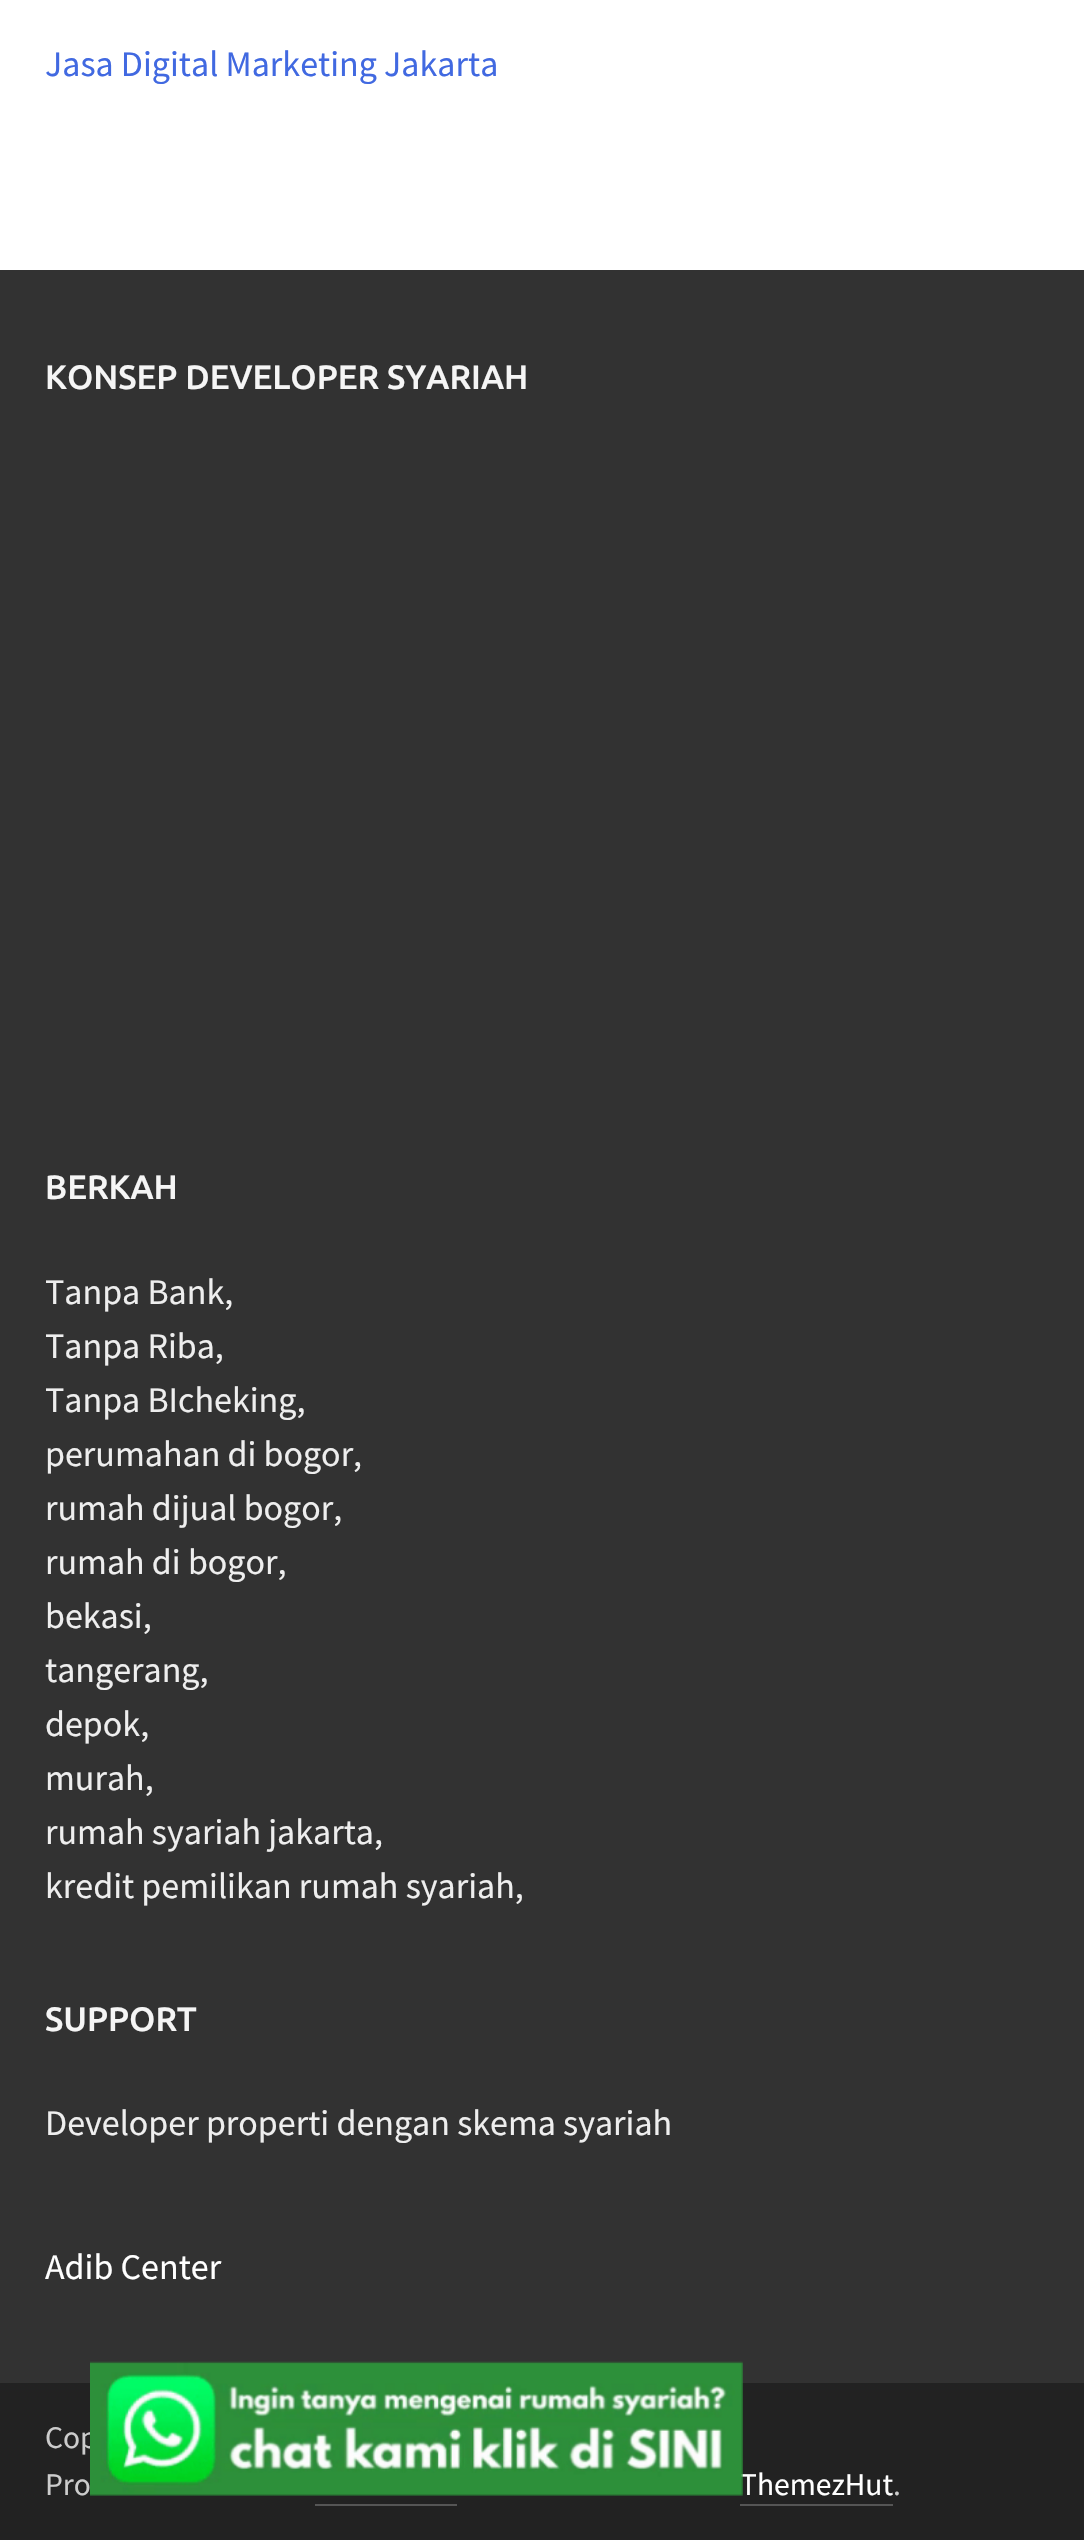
static SkFont makeFont(const char* family, int weight, float size, bool italic = false) {
  SkFontStyle style(weight, SkFontStyle::kNormal_Width,
    italic ? SkFontStyle::kItalic_Slant : SkFontStyle::kUpright_Slant);
  SkFont result(fontMgr->matchFamilyStyle(family, style), size);
  result.setSubpixel(true);
  return result;
}

static void text(SkCanvas* c, const char* s, float x, float y, const SkFont& font, SkColor color) {
  SkPaint ink(SkColor4f::FromColor(color));
  ink.setAntiAlias(true);
  c->drawString(s, x, y, font, ink);
}

static void box(SkCanvas* c, float l, float t, float r, float b, SkColor color) {
  SkPaint ink(SkColor4f::FromColor(color));
  ink.setAntiAlias(true);
  c->drawRect(SkRect::MakeLTRB(l, t, r, b), ink);
}

static void picture(SkCanvas* c, const char* path, float l, float t, float r, float b) {
  auto image = SkImages::DeferredFromEncodedData(SkData::MakeFromFileName(path));
  c->drawImageRect(image, SkRect::MakeLTRB(l, t, r, b), SkSamplingOptions());
}

void draw(SkCanvas* c) {
  SkPaint paint;
  paint.setAntiAlias(true);
  c->clear(0xffffffff);
  SkFont face1 = makeFont("Source Sans Pro", 400, 36);
  text(c, "Jasa Digital Marketing Jakarta", 45, 76, face1, 0xff4169e1);
  box(c, 0, 270, 1084, 2383, 0xff323232);
  box(c, 0, 2383, 1084, 2540, 0xff222222);
  SkFont face2 = makeFont("Source Sans Pro", 400, 31.5f);
  text(c, "Cop", 45, 2448, face2, 0xffcccccc);
  text(c, "ThemezHut", 740, 2495, face2, 0xffffffff);
  picture(c, "img_01.png", 90, 2361, 743, 2496);
  SkFont face3 = makeFont("Ubuntu", 500, 33.75f);
  text(c, "KONSEP DEVELOPER SYARIAH", 45, 389, face3, 0xfff5f5f5);
  text(c, "BERKAH", 45, 1199, face3, 0xfff5f5f5);
  text(c, "Tanpa Bank,", 45, 1304, face1, 0xffeeeeee);
  text(c, "Tanpa Riba,", 45, 1358, face1, 0xffeeeeee);
  text(c, "Tanpa BIcheking,", 45, 1412, face1, 0xffeeeeee);
  text(c, "perumahan di bogor,", 45, 1466, face1, 0xffeeeeee);
  text(c, "rumah dijual bogor,", 45, 1520, face1, 0xffeeeeee);
  text(c, "rumah di bogor,", 45, 1574, face1, 0xffeeeeee);
  text(c, "bekasi,", 45, 1628, face1, 0xffeeeeee);
  text(c, "tangerang,", 45, 1682, face1, 0xffeeeeee);
  text(c, "depok,", 45, 1736, face1, 0xffeeeeee);
  text(c, "murah,", 45, 1790, face1, 0xffeeeeee);
  text(c, "rumah syariah jakarta,", 45, 1844, face1, 0xffeeeeee);
  text(c, "kredit pemilikan rumah syariah,", 45, 1898, face1, 0xffeeeeee);
  text(c, "SUPPORT", 45, 2031, face3, 0xfff5f5f5);
  text(c, "Developer properti dengan skema syariah", 45, 2135, face1, 0xffeeeeee);
  text(c, "Adib Center", 45, 2279, face1, 0xffffffff);
  text(c, "Pro", 45, 2495, face2, 0xffcccccc);
  box(c, 740, 2504, 893, 2506, 0xff555555);
  text(c, ".", 893, 2495, face2, 0xffcccccc);
  box(c, 315, 2504, 457, 2506, 0xff555555);
}
